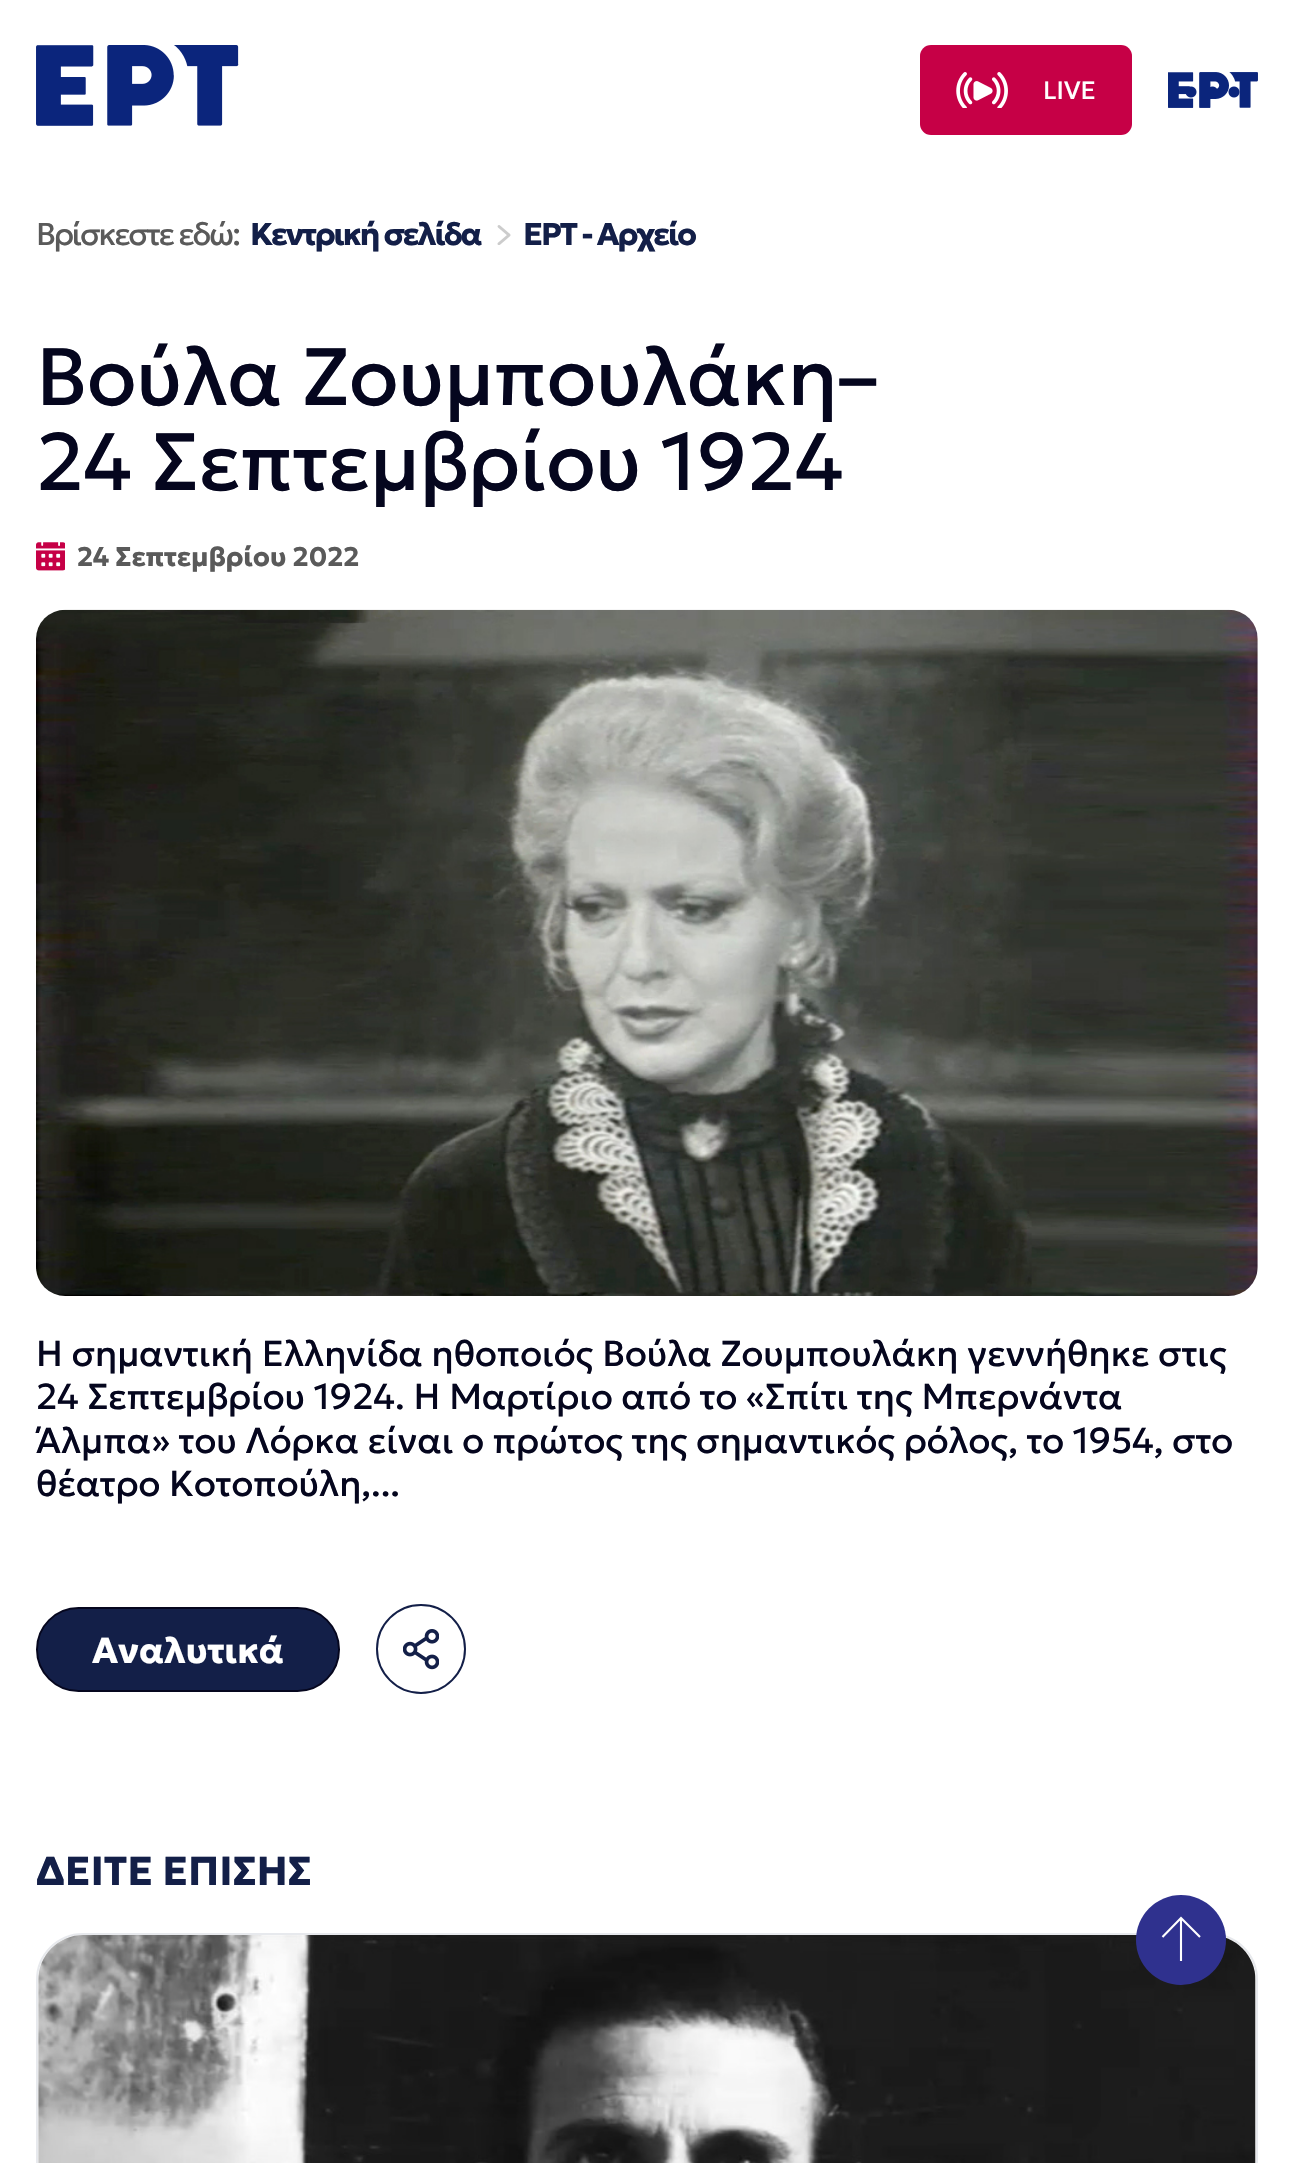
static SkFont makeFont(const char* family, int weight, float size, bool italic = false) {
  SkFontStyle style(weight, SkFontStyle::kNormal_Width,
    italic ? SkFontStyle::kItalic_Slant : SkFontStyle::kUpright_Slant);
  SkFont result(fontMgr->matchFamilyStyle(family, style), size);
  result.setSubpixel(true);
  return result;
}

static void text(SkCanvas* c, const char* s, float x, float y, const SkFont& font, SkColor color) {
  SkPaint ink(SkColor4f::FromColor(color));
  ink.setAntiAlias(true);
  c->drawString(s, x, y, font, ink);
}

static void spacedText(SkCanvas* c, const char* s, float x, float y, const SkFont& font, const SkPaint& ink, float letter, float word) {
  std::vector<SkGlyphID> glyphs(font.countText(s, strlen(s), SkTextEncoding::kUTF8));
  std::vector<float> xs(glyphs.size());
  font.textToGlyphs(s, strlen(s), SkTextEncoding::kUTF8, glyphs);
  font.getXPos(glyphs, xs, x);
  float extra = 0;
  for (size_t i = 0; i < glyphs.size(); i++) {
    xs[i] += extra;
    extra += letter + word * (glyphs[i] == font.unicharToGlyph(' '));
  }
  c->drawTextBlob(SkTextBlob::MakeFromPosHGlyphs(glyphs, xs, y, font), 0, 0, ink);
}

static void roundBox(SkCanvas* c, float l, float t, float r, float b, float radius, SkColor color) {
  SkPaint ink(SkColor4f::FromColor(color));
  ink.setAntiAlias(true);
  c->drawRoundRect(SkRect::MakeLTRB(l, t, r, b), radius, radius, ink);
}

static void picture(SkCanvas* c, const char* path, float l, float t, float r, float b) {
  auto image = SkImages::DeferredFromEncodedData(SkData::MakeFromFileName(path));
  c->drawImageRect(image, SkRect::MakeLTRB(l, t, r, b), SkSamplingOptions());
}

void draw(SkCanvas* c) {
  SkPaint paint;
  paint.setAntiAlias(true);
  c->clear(0xffffffff);
  picture(c, "img_01.png", 36, 45, 239, 126);
  roundBox(c, 920, 45, 1132, 135, 11, 0xffc60046);
  picture(c, "img_02.png", 956, 72, 1008, 108);
  SkFont face1 = makeFont("Geologica", 400, 25);
  text(c, "LIVE", 1043, 99, face1, 0xffffffff);
  picture(c, "img_03.png", 1168, 72, 1258, 108);
  SkFont face2 = makeFont("Geologica", 400, 31.5f);
  paint.setColor(0xff5a5a5a);
  spacedText(c, "Βρίσκεστε εδώ:", 36, 245, face2, paint, -2, 0);
  SkFont face3 = makeFont("Geologica", 700, 31.5f);
  paint.setColor(0xff131f48);
  spacedText(c, "Κεντρική σελίδα", 250, 245, face3, paint, -2, 0);
  picture(c, "img_04.png", 497, 225, 511, 245);
  spacedText(c, "ΕΡΤ - Αρχείο", 523, 245, face3, paint, -2, 0);
  SkFont face4 = makeFont("Geologica", 400, 81);
  text(c, "Βούλα Ζουμπουλάκη–", 36, 405, face4, 0xff05061e);
  text(c, "24 Σεπτεμβρίου 1924", 36, 490, face4, 0xff05061e);
  picture(c, "img_05.png", 36, 542, 65, 571);
  SkFont face5 = makeFont("Geologica", 700, 27);
  text(c, "24 Σεπτεμβρίου 2022", 77, 566, face5, 0xff5a5a5a);
  picture(c, "img_06.png", 36, 609, 1258, 1296);
  SkFont face6 = makeFont("Geologica", 400, 36);
  text(c, "Η σημαντική Ελληνίδα ηθοποιός Βούλα Ζουμπουλάκη γεννήθηκε στις", 36, 1366, face6, 0xff05061e);
  text(c, "24 Σεπτεμβρίου 1924. Η Μαρτίριο από το «Σπίτι της Μπερνάντα", 36, 1409, face6, 0xff05061e);
  text(c, "Άλμπα» του Λόρκα είναι ο πρώτος της σημαντικός ρόλος, το 1954, στο", 36, 1453, face6, 0xff05061e);
  text(c, "θέατρο Κοτοπούλη,...", 36, 1496, face6, 0xff05061e);
  c->drawRoundRect(SkRect::MakeLTRB(37, 1608, 339, 1691), 41.5f, 41.5f, paint);
  paint.setStyle(SkPaint::kStroke_Style);
  paint.setStrokeWidth(2);
  paint.setColor(0xff05061e);
  c->drawRoundRect(SkRect::MakeLTRB(37, 1608, 339, 1691), 41.5f, 41.5f, paint);
  SkFont face7 = makeFont("Geologica", 700, 36);
  text(c, "Αναλυτικά", 92, 1663, face7, 0xffffffff);
  paint.setColor(0xff131f48);
  c->drawCircle(421, 1649, 44, paint);
  picture(c, "img_07.png", 403, 1629, 439, 1670);
  SkFont face8 = makeFont("Geologica", 700, 40.5f);
  text(c, "ΔΕΙΤΕ ΕΠΙΣΗΣ", 36, 1885, face8, 0xff131f48);
  paint.setColor(0xffe7e9ed);
  c->drawRoundRect(SkRect::MakeLTRB(37, 1934, 1257, 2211), 46, 46, paint);
  paint.setStyle(SkPaint::kFill_Style);
  paint.setColor(0xfff5f5f5);
  c->drawPath(SkPathBuilder().moveTo(83, 1935).lineTo(1211, 1935).cubicTo(1236, 1935, 1256, 1955, 1256, 1980).lineTo(1256, 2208).lineTo(38, 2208).lineTo(38, 1980).cubicTo(38, 1955, 58, 1935, 83, 1935).close().detach(), paint);
  picture(c, "img_08.png", 38, 1935, 1256, 2163);
  paint.setColor(0xff2f318e);
  c->drawCircle(1181, 1940, 45, paint);
  paint.setStyle(SkPaint::kStroke_Style);
  paint.setStrokeWidth(2.1f);
  paint.setColor(0xffffffff);
  c->drawPath(SkPathBuilder().moveTo(1181, 1961).lineTo(1181, 1918).moveTo(1162.5f, 1937).lineTo(1181, 1918).lineTo(1200, 1937).detach(), paint);
}
